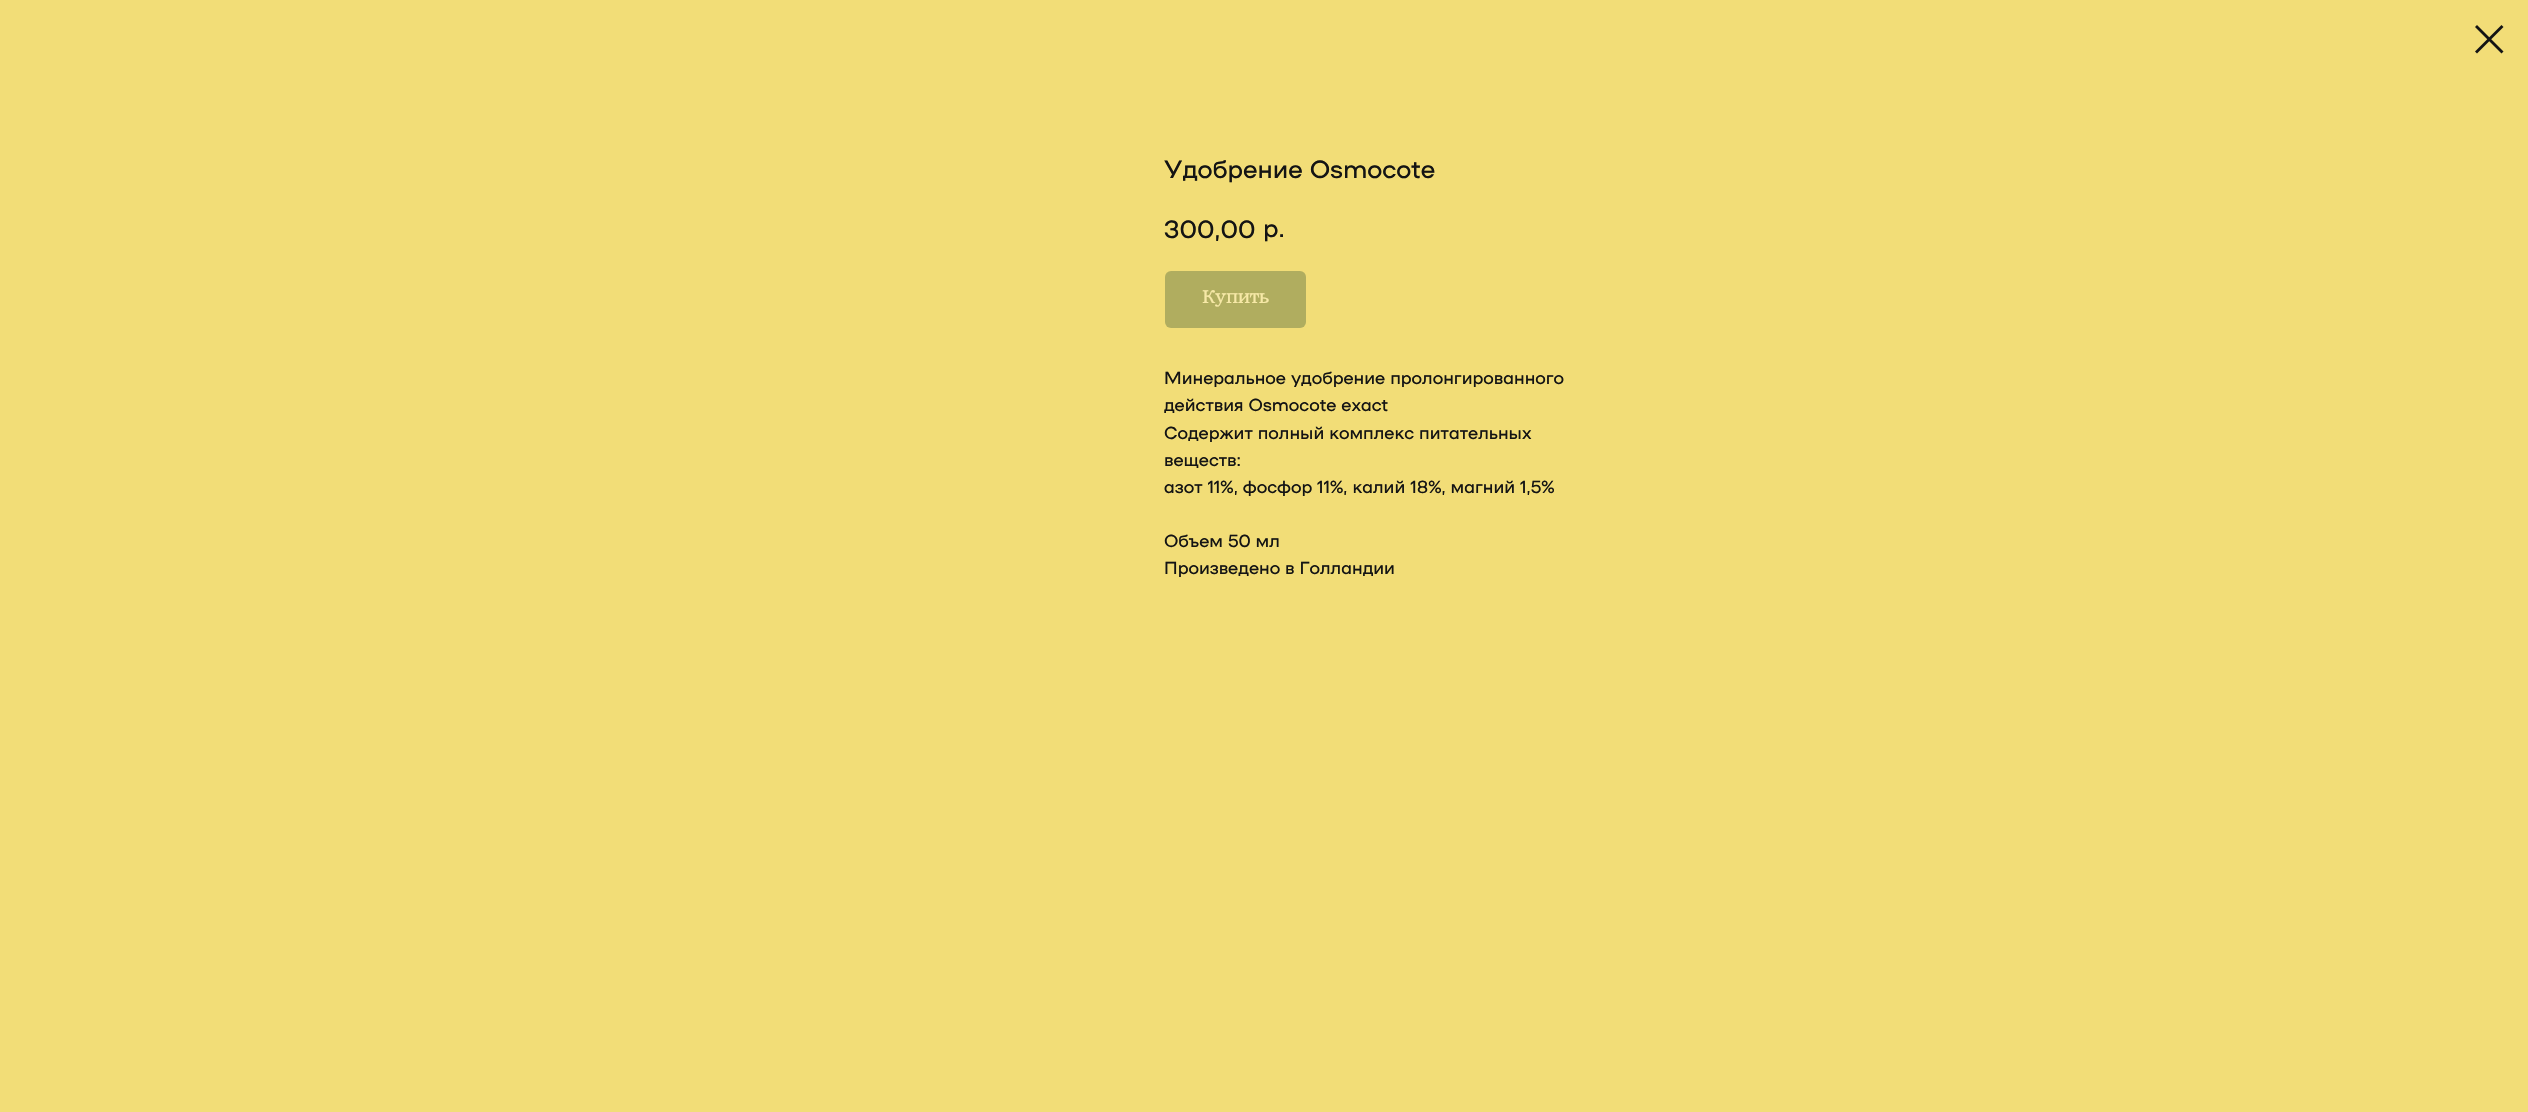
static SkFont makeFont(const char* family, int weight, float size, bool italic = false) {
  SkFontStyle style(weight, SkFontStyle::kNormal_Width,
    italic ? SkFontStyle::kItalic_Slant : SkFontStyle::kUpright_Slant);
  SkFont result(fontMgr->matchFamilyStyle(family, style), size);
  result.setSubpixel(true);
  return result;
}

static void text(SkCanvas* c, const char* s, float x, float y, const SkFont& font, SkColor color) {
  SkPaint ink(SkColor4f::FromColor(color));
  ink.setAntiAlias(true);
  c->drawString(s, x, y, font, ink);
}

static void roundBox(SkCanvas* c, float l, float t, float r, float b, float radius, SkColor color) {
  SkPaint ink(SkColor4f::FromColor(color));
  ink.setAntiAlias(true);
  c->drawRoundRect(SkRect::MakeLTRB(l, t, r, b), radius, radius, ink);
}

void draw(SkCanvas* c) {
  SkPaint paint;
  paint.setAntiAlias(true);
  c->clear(0xfff2dd77);
  paint.setColor(0xff141414);
  c->drawPath(SkPathBuilder(SkPathFillType::kEvenOdd).moveTo(2475, 27).lineTo(2477, 25).lineTo(2503.5f, 51.5f).lineTo(2501.5f, 53.5f).close().detach(), paint);
  c->drawPath(SkPathBuilder(SkPathFillType::kEvenOdd).moveTo(2501.5f, 25).lineTo(2503.5f, 27).lineTo(2477, 53.5f).lineTo(2475, 51.5f).close().detach(), paint);
  SkFont face1 = makeFont("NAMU", 800, 25);
  text(c, "Удобрение Osmocote", 1164, 178, face1, 0xff141414);
  text(c, "300,00", 1164, 238, face1, 0xff141414);
  text(c, "р.", 1263, 237, face1, 0xff141414);
  roundBox(c, 1165, 271, 1306, 328, 6, 0xffb0ad5f);
  SkFont face2 = makeFont("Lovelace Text", 700, 17.5f);
  text(c, "Купить", 1202, 303, face2, 0xfff7e9a7);
  SkFont face3 = makeFont("NAMU", 800, 17.5f);
  text(c, "Минеральное удобрение пролонгированного", 1164, 384, face3, 0xff141414);
  text(c, "действия Osmocote exact", 1164, 411, face3, 0xff141414);
  text(c, "Содержит полный комплекс питательных", 1164, 439, face3, 0xff141414);
  text(c, "веществ:", 1164, 466, face3, 0xff141414);
  text(c, "азот 11%, фосфор 11%, калий 18%, магний 1,5%", 1164, 493, face3, 0xff141414);
  text(c, "Объем 50 мл", 1164, 547, face3, 0xff141414);
  text(c, "Произведено в Голландии", 1164, 574, face3, 0xff141414);
}
